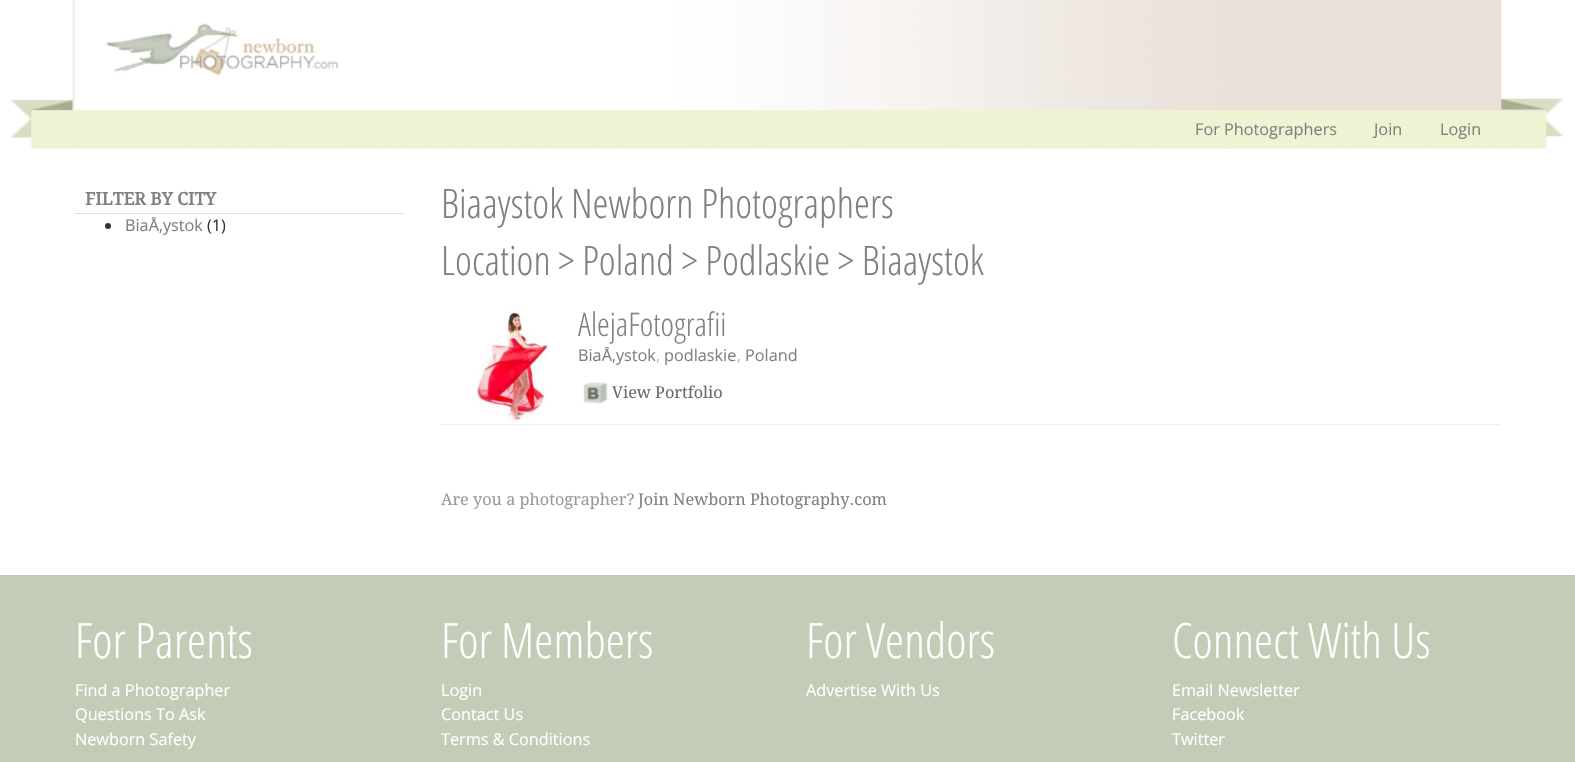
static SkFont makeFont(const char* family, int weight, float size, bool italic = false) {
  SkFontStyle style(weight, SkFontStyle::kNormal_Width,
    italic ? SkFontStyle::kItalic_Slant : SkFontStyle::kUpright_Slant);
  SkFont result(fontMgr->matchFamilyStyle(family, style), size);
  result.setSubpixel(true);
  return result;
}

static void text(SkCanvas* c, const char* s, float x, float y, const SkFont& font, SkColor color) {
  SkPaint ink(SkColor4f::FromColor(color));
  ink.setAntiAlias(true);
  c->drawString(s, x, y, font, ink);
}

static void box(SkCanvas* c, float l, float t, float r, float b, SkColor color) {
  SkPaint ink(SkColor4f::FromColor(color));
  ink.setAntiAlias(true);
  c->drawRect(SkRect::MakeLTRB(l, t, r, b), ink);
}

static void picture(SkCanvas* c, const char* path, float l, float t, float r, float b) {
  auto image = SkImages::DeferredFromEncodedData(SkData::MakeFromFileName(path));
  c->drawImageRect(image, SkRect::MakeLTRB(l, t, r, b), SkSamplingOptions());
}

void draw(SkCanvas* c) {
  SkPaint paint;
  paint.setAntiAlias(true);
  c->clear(0xffffffff);
  picture(c, "img_01.png", 11, 0, 1563, 149);
  picture(c, "img_02.png", 106, 23, 339, 76);
  SkFont face1 = makeFont("Open Sans", 400, 16.25f);
  text(c, "For Photographers", 1195, 135, face1, 0xff808080);
  text(c, "Join", 1374, 135, face1, 0xff808080);
  text(c, "Login", 1440, 135, face1, 0xff808080);
  box(c, 75, 213, 404, 214, 0xffdddddd);
  SkFont face2 = makeFont("Droid Serif", 700, 17.5f);
  text(c, "FILTER BY CITY", 85, 205, face2, 0xff808080);
  paint.setColor(0xff333333);
  c->drawCircle(108, 226, 3, paint);
  text(c, "BiaÅ‚ystok", 125, 231, face1, 0xff808080);
  text(c, "(1)", 207, 231, face1, 0xff333333);
  SkFont face3 = makeFont("Open Sans Condensed", 300, 40.6f);
  text(c, "Biaaystok Newborn Photographers", 441, 218, face3, 0xff808080);
  text(c, "Location > Poland > Podlaskie > Biaaystok", 441, 275, face3, 0xff808080);
  box(c, 441, 424, 1500, 425, 0xffeeeeee);
  picture(c, "img_03.png", 476, 308, 550, 422);
  SkFont face4 = makeFont("Open Sans Condensed", 300, 32.5f);
  text(c, "AlejaFotografii", 578, 336, face4, 0xff808080);
  text(c, "BiaÅ‚ystok", 578, 361, face1, 0xff808080);
  text(c, ",", 656, 361, face1, 0xffbbbbbb);
  text(c, "podlaskie", 664, 361, face1, 0xff808080);
  text(c, ",", 737, 361, face1, 0xffbbbbbb);
  text(c, "Poland", 745, 361, face1, 0xff808080);
  picture(c, "img_04.png", 583, 382, 608, 404);
  SkFont face5 = makeFont("Droid Serif", 400, 16.25f);
  text(c, "View Portfolio", 612, 398, face5, 0xff676a67);
  text(c, "Are you a photographer?", 441, 505, face5, 0xff999999);
  text(c, "Join Newborn Photography.com", 638, 505, face5, 0xff808080);
  box(c, 0, 575, 1575, 762, 0xffc4ccb7);
  SkFont face6 = makeFont("Open Sans Condensed", 300, 48.75f);
  text(c, "For Parents", 75, 658, face6, 0xffffffff);
  text(c, "Find a Photographer", 75, 696, face1, 0xffffffff);
  text(c, "Questions To Ask", 75, 720, face1, 0xffffffff);
  text(c, "Newborn Safety", 75, 745, face1, 0xffffffff);
  text(c, "For Members", 441, 658, face6, 0xffffffff);
  text(c, "Login", 441, 696, face1, 0xffffffff);
  text(c, "Contact Us", 441, 720, face1, 0xffffffff);
  text(c, "Terms & Conditions", 441, 745, face1, 0xffffffff);
  text(c, "For Vendors", 806, 658, face6, 0xffffffff);
  text(c, "Advertise With Us", 806, 696, face1, 0xffffffff);
  text(c, "Connect With Us", 1172, 658, face6, 0xffffffff);
  text(c, "Email Newsletter", 1172, 696, face1, 0xffffffff);
  text(c, "Facebook", 1172, 720, face1, 0xffffffff);
  text(c, "Twitter", 1172, 745, face1, 0xffffffff);
}
